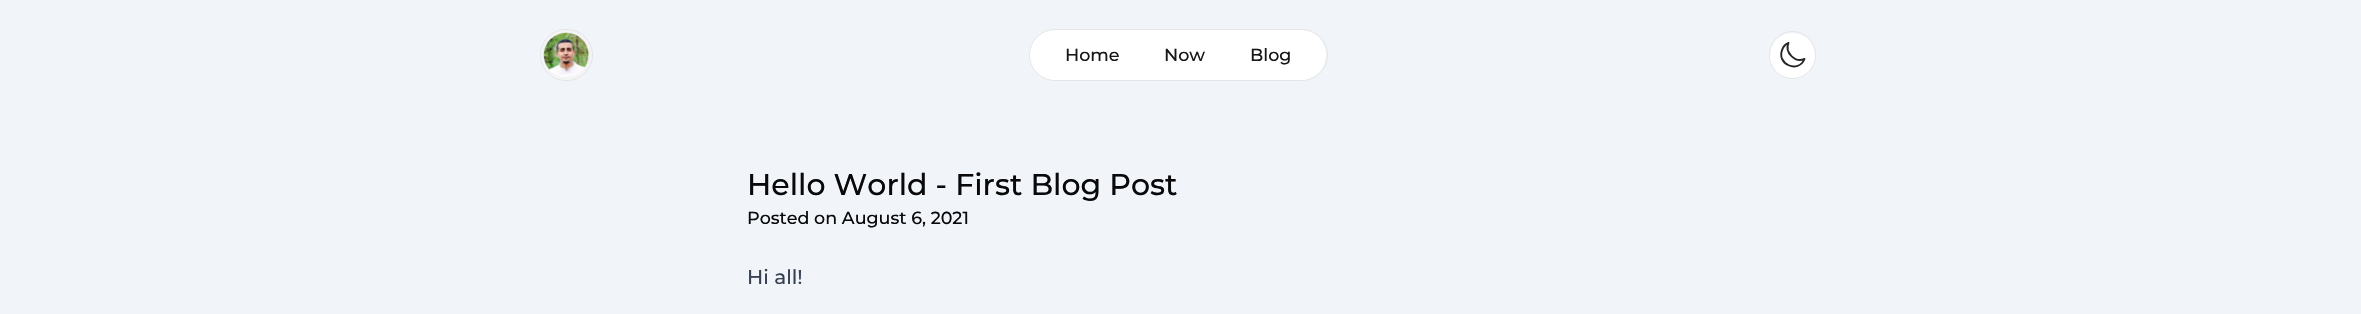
static SkFont makeFont(const char* family, int weight, float size, bool italic = false) {
  SkFontStyle style(weight, SkFontStyle::kNormal_Width,
    italic ? SkFontStyle::kItalic_Slant : SkFontStyle::kUpright_Slant);
  SkFont result(fontMgr->matchFamilyStyle(family, style), size);
  result.setSubpixel(true);
  return result;
}

static void text(SkCanvas* c, const char* s, float x, float y, const SkFont& font, SkColor color) {
  SkPaint ink(SkColor4f::FromColor(color));
  ink.setAntiAlias(true);
  c->drawString(s, x, y, font, ink);
}

static void roundBox(SkCanvas* c, float l, float t, float r, float b, float radius, SkColor color) {
  SkPaint ink(SkColor4f::FromColor(color));
  ink.setAntiAlias(true);
  c->drawRoundRect(SkRect::MakeLTRB(l, t, r, b), radius, radius, ink);
}

static void picture(SkCanvas* c, const char* path, float l, float t, float r, float b) {
  auto image = SkImages::DeferredFromEncodedData(SkData::MakeFromFileName(path));
  c->drawImageRect(image, SkRect::MakeLTRB(l, t, r, b), SkSamplingOptions());
}

void draw(SkCanvas* c) {
  SkPaint paint;
  paint.setAntiAlias(true);
  c->clear(0xfff1f5f9);
  paint.setStyle(SkPaint::kStroke_Style);
  paint.setStrokeWidth(1);
  paint.setColor(0xffe4e4e7);
  c->drawRoundRect(SkRect::MakeLTRB(540.5f, 29.5f, 592.5f, 80.5f), 25.5f, 25.5f, paint);
  paint.setStyle(SkPaint::kFill_Style);
  paint.setColor(0xfff4f4f5);
  c->drawCircle(566, 55, 25, paint);
  picture(c, "img_01.png", 543, 32, 590, 77);
  paint.setStyle(SkPaint::kStroke_Style);
  paint.setColor(0xffe5e5e5);
  c->drawRoundRect(SkRect::MakeLTRB(1029.5f, 29.5f, 1327.5f, 80.5f), 25.5f, 25.5f, paint);
  roundBox(c, 1030, 30, 1326, 80, 25, 0xffffffff);
  SkFont face1 = makeFont("Montserrat", 500, 17.5f);
  text(c, "Home", 1065, 61, face1, 0xff171717);
  text(c, "Now", 1164, 61, face1, 0xff171717);
  text(c, "Blog", 1250, 61, face1, 0xff171717);
  paint.setColor(0xffe4e4e7);
  c->drawRoundRect(SkRect::MakeLTRB(1769.5f, 31.5f, 1815.5f, 78.5f), 23, 23, paint);
  paint.setStyle(SkPaint::kFill_Style);
  paint.setColor(0xffffffff);
  c->drawCircle(1792.5f, 55.5f, 22.5f, paint);
  paint.setStyle(SkPaint::kStroke_Style);
  paint.setStrokeWidth(1.9f);
  paint.setStrokeCap(SkPaint::kRound_Cap);
  paint.setStrokeJoin(SkPaint::kRound_Join);
  paint.setColor(0xff27272a);
  c->drawPath(SkPathBuilder().moveTo(1804.5f, 59).cubicTo(1795, 63, 1784.5f, 52.5f, 1788.5f, 43).cubicTo(1786, 44, 1783.5f, 46, 1782.5f, 49).cubicTo(1775.5f, 64, 1798.5f, 74, 1804.5f, 59).close().detach(), paint);
  SkFont face2 = makeFont("Montserrat", 500, 30);
  text(c, "Hello World - First Blog Post", 747, 195, face2, 0xff09090b);
  text(c, "Posted on August 6, 2021", 747, 224, face1, 0xff09090b);
  SkFont face3 = makeFont("Montserrat", 500, 20);
  text(c, "Hi all!", 747, 284, face3, 0xff374151);
}
